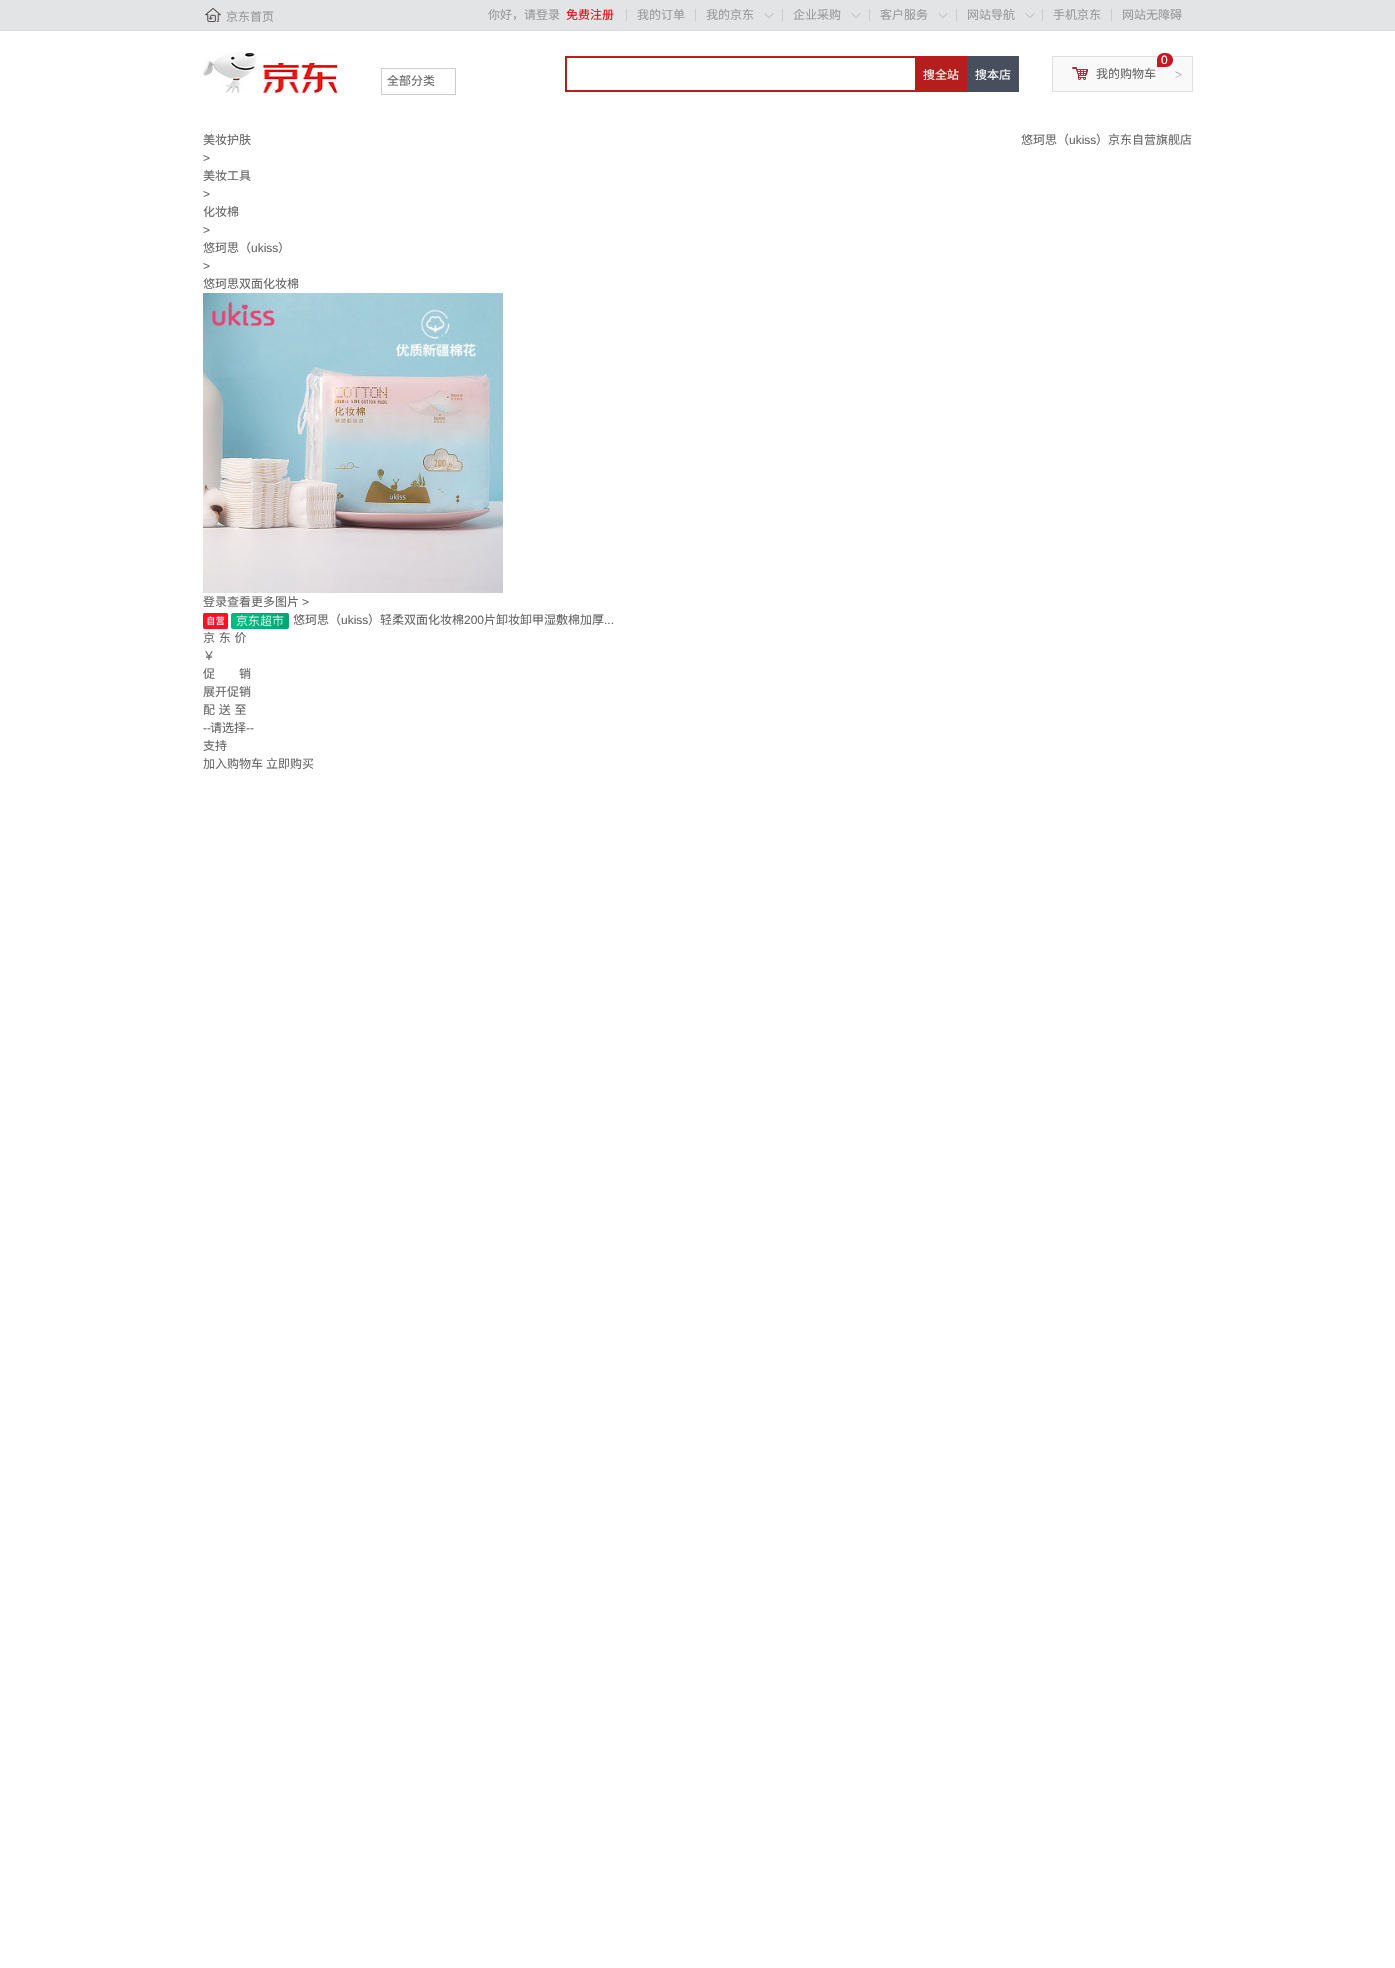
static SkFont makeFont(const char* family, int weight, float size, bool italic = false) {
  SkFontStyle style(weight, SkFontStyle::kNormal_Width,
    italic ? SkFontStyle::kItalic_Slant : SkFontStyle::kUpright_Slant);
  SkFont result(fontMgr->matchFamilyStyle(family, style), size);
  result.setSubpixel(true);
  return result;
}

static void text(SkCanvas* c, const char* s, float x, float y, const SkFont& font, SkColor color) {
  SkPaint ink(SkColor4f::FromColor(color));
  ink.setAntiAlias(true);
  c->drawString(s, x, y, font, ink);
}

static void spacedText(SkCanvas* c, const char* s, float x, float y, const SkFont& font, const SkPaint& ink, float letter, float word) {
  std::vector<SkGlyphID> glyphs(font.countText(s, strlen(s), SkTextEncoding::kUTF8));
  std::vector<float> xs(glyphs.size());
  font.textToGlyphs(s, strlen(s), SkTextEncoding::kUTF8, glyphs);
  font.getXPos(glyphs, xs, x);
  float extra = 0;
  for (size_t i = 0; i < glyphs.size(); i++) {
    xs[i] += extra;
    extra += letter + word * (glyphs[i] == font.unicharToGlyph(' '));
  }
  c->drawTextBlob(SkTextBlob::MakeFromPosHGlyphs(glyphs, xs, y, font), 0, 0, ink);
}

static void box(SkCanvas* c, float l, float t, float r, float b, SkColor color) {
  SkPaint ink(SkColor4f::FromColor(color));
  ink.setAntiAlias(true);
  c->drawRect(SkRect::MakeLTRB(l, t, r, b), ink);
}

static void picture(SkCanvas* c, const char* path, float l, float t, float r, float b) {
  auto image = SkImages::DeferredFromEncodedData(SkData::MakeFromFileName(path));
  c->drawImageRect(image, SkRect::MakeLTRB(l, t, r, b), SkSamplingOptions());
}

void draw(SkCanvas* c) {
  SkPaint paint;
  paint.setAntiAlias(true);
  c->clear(0xffffffff);
  box(c, 0, 0, 1395, 30, 0xffe3e4e5);
  box(c, 0, 30, 1395, 31, 0xffdddddd);
  picture(c, "img_01.png", 205, 8, 221, 23);
  SkFont face1 = makeFont("Noto Sans CJK SC", 400, 12);
  text(c, "京东首页", 226, 21, face1, 0xff999999);
  text(c, "你好，请登录", 488, 19, face1, 0xff999999);
  text(c, "免费注册", 566, 19, face1, 0xfff30213);
  box(c, 626, 9, 627, 21, 0xffcccccc);
  text(c, "我的订单", 637, 19, face1, 0xff999999);
  box(c, 695, 9, 696, 21, 0xffcccccc);
  text(c, "我的京东", 706, 19, face1, 0xff999999);
  picture(c, "img_02.png", 764, 13, 774, 18);
  box(c, 782, 9, 783, 21, 0xffcccccc);
  text(c, "企业采购", 793, 19, face1, 0xff999999);
  picture(c, "img_02.png", 851, 13, 861, 18);
  box(c, 869, 9, 870, 21, 0xffcccccc);
  text(c, "客户服务", 880, 19, face1, 0xff999999);
  picture(c, "img_02.png", 938, 13, 948, 18);
  box(c, 956, 9, 957, 21, 0xffcccccc);
  text(c, "网站导航", 967, 19, face1, 0xff999999);
  picture(c, "img_02.png", 1025, 13, 1035, 18);
  box(c, 1042, 9, 1043, 21, 0xffcccccc);
  text(c, "手机京东", 1053, 19, face1, 0xff999999);
  box(c, 1111, 9, 1112, 21, 0xffcccccc);
  text(c, "网站无障碍", 1122, 19, face1, 0xff999999);
  picture(c, "img_03.png", 203, 51, 338, 93);
  paint.setStyle(SkPaint::kStroke_Style);
  paint.setStrokeWidth(1);
  paint.setColor(0xffcccccc);
  c->drawRect(SkRect::MakeLTRB(381.5f, 68.5f, 455.5f, 94.5f), paint);
  text(c, "全部分类", 387, 85, face1, 0xff666666);
  box(c, 565, 56, 915, 58, 0xffb61d1d);
  box(c, 565, 90, 915, 92, 0xffb61d1d);
  box(c, 565, 56, 567, 92, 0xffb61d1d);
  box(c, 915, 56, 967, 92, 0xffb61d1d);
  text(c, "搜全站", 923, 79, face1, 0xffffffff);
  box(c, 967, 56, 1019, 92, 0xff474e5c);
  text(c, "搜本店", 975, 79, face1, 0xffffffff);
  paint.setStyle(SkPaint::kFill_Style);
  paint.setColor(0xfff9f9f9);
  c->drawRect(SkRect::MakeLTRB(1052.5f, 56.5f, 1192.5f, 91.5f), paint);
  paint.setStyle(SkPaint::kStroke_Style);
  paint.setColor(0xffdfdfdf);
  c->drawRect(SkRect::MakeLTRB(1052.5f, 56.5f, 1192.5f, 91.5f), paint);
  paint.setStyle(SkPaint::kFill_Style);
  paint.setColor(0xffc81623);
  c->drawPath(SkPathBuilder().moveTo(1164, 53).lineTo(1166, 53).cubicTo(1170, 53, 1173, 56, 1173, 60).cubicTo(1173, 64, 1170, 67, 1166, 67).lineTo(1157, 67).lineTo(1157, 60).cubicTo(1157, 56, 1160, 53, 1164, 53).close().detach(), paint);
  SkFont face2 = makeFont("Liberation Sans", 400, 12);
  text(c, "0", 1161, 64, face2, 0xffffffff);
  picture(c, "img_04.png", 1072, 67, 1088, 80);
  text(c, "我的购物车", 1096, 78, face1, 0xff666666);
  SkFont face3 = makeFont("Liberation Serif", 400, 13);
  text(c, ">", 1175, 79, face3, 0xff999999);
  text(c, "美妆护肤", 203, 144, face1, 0xff666666);
  text(c, ">", 203, 162, face2, 0xff666666);
  text(c, "美妆工具", 203, 180, face1, 0xff666666);
  text(c, ">", 203, 198, face2, 0xff666666);
  text(c, "化妆棉", 203, 216, face1, 0xff666666);
  text(c, ">", 203, 234, face2, 0xff666666);
  text(c, "悠珂思（", 203, 252, face1, 0xff666666);
  text(c, "ukiss", 251, 252, face2, 0xff666666);
  text(c, "）", 278, 252, face1, 0xff666666);
  text(c, ">", 203, 270, face2, 0xff666666);
  text(c, "悠珂思双面化妆棉", 203, 288, face1, 0xff666666);
  text(c, "悠珂思（", 1021, 144, face1, 0xff666666);
  text(c, "ukiss", 1069, 144, face2, 0xff666666);
  text(c, "）京东自营旗舰店", 1096, 144, face1, 0xff666666);
  picture(c, "img_05.png", 203, 293, 503, 593);
  text(c, "登录查看更多图片", 203, 606, face1, 0xff666666);
  text(c, ">", 302, 606, face2, 0xff666666);
  picture(c, "img_06.png", 203, 613, 228, 629);
  picture(c, "img_07.png", 231, 613, 289, 629);
  text(c, "悠珂思（", 293, 624, face1, 0xff666666);
  text(c, "ukiss", 341, 624, face2, 0xff666666);
  text(c, "）轻柔双面化妆棉", 368, 624, face1, 0xff666666);
  text(c, "200", 464, 624, face2, 0xff666666);
  text(c, "片卸妆卸甲湿敷棉加厚", 484, 624, face1, 0xff666666);
  text(c, "...", 604, 624, face2, 0xff666666);
  paint.setColor(0xff666666);
  spacedText(c, "京 东 价", 203, 642, face1, paint, 0, 1);
  text(c, "￥", 203, 660, face1, 0xff666666);
  text(c, "促　　销", 203, 678, face1, 0xff666666);
  text(c, "展开促销", 203, 696, face1, 0xff666666);
  spacedText(c, "配 送 至", 203, 714, face1, paint, 0, 1);
  text(c, "--", 203, 732, face2, 0xff666666);
  text(c, "请选择", 210, 732, face1, 0xff666666);
  text(c, "--", 246, 732, face2, 0xff666666);
  text(c, "支持", 203, 750, face1, 0xff666666);
  text(c, "加入购物车", 203, 768, face1, 0xff666666);
  text(c, "立即购买", 266, 768, face1, 0xff666666);
}
